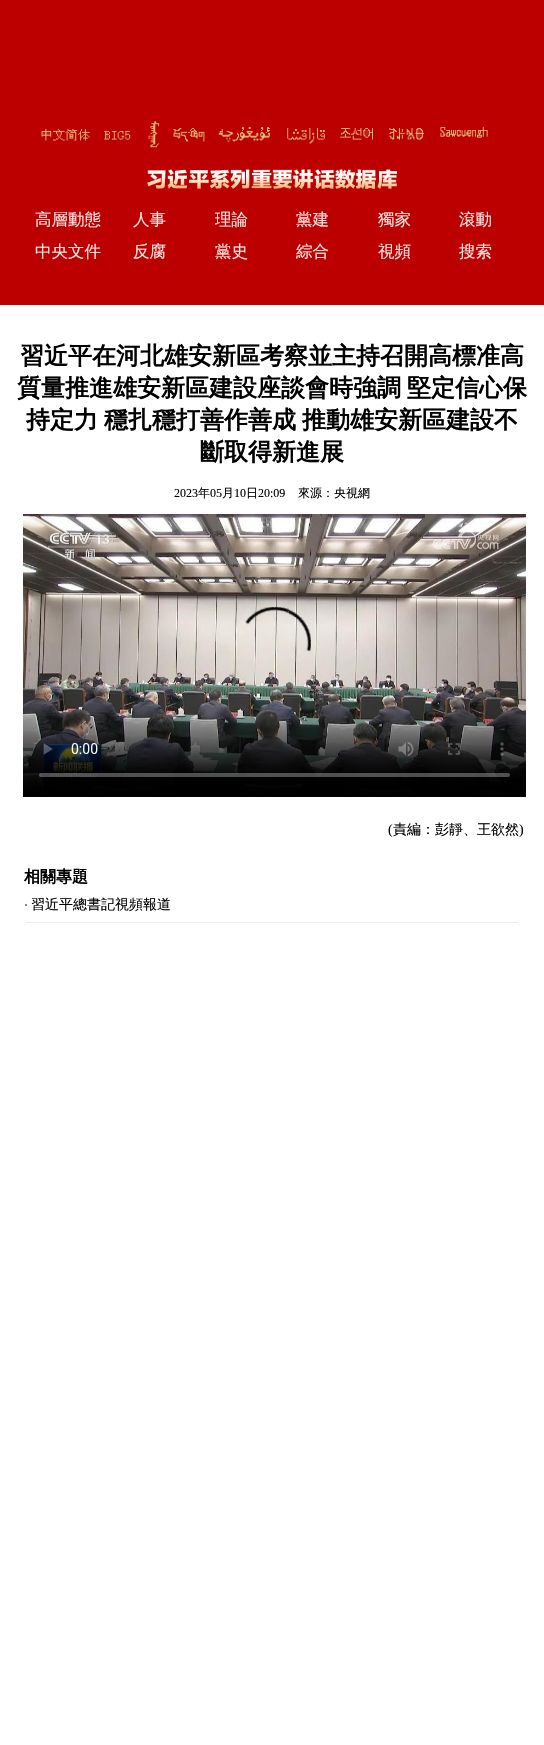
static SkFont makeFont(const char* family, int weight, float size, bool italic = false) {
  SkFontStyle style(weight, SkFontStyle::kNormal_Width,
    italic ? SkFontStyle::kItalic_Slant : SkFontStyle::kUpright_Slant);
  SkFont result(fontMgr->matchFamilyStyle(family, style), size);
  result.setSubpixel(true);
  return result;
}

static void text(SkCanvas* c, const char* s, float x, float y, const SkFont& font, SkColor color) {
  SkPaint ink(SkColor4f::FromColor(color));
  ink.setAntiAlias(true);
  c->drawString(s, x, y, font, ink);
}

static void box(SkCanvas* c, float l, float t, float r, float b, SkColor color) {
  SkPaint ink(SkColor4f::FromColor(color));
  ink.setAntiAlias(true);
  c->drawRect(SkRect::MakeLTRB(l, t, r, b), ink);
}

static void picture(SkCanvas* c, const char* path, float l, float t, float r, float b) {
  auto image = SkImages::DeferredFromEncodedData(SkData::MakeFromFileName(path));
  c->drawImageRect(image, SkRect::MakeLTRB(l, t, r, b), SkSamplingOptions());
}

void draw(SkCanvas* c) {
  SkPaint paint;
  paint.setAntiAlias(true);
  c->clear(0xffffffff);
  box(c, 0, 0, 544, 305, 0xffbc0000);
  picture(c, "img_01.png", 41, 121, 488, 148);
  picture(c, "img_02.png", 147, 169, 397, 189);
  SkFont face1 = makeFont("WenQuanYi Zen Hei", 500, 16.5f);
  text(c, "高層動態", 35, 225, face1, 0xfff8e6e6);
  text(c, "人事", 133, 225, face1, 0xfff8e6e6);
  text(c, "理論", 215, 225, face1, 0xfff8e6e6);
  text(c, "黨建", 296, 225, face1, 0xfff8e6e6);
  text(c, "獨家", 378, 225, face1, 0xfff8e6e6);
  text(c, "滾動", 459, 225, face1, 0xfff8e6e6);
  text(c, "中央文件", 35, 257, face1, 0xfff8e6e6);
  text(c, "反腐", 133, 257, face1, 0xfff8e6e6);
  text(c, "黨史", 215, 257, face1, 0xfff8e6e6);
  text(c, "綜合", 296, 257, face1, 0xfff8e6e6);
  text(c, "視頻", 378, 257, face1, 0xfff8e6e6);
  text(c, "搜索", 459, 257, face1, 0xfff8e6e6);
  SkFont face2 = makeFont("WenQuanYi Zen Hei", 700, 24);
  text(c, "習近平在河北雄安新區考察並主持召開高標准高", 20, 364, face2, 0xff000000);
  text(c, "質量推進雄安新區建設座談會時強調", 17, 396, face2, 0xff000000);
  text(c, "堅定信心保", 407, 396, face2, 0xff000000);
  text(c, "持定力", 26, 428, face2, 0xff000000);
  text(c, "穩扎穩打善作善成", 104, 428, face2, 0xff000000);
  text(c, "推動雄安新區建設不", 302, 428, face2, 0xff000000);
  text(c, "斷取得新進展", 200, 460, face2, 0xff000000);
  SkFont face3 = makeFont("Liberation Serif", 400, 12);
  text(c, "2023", 174, 497, face3, 0xff000000);
  SkFont face4 = makeFont("WenQuanYi Zen Hei", 500, 12);
  text(c, "年", 198, 497, face4, 0xff000000);
  text(c, "05", 210, 497, face3, 0xff000000);
  text(c, "月", 222, 497, face4, 0xff000000);
  text(c, "10", 234, 497, face3, 0xff000000);
  text(c, "日", 246, 497, face4, 0xff000000);
  text(c, "20:09", 258, 497, face3, 0xff000000);
  text(c, "來源：央視網", 298, 497, face4, 0xff000000);
  picture(c, "img_03.png", 23, 514, 526, 797);
  SkFont face5 = makeFont("Liberation Serif", 400, 14);
  text(c, "(", 388, 834, face5, 0xff000000);
  SkFont face6 = makeFont("WenQuanYi Zen Hei", 500, 14);
  text(c, "責編：彭靜、王欲然", 393, 834, face6, 0xff000000);
  text(c, ")", 519, 834, face5, 0xff000000);
  SkFont face7 = makeFont("WenQuanYi Zen Hei", 700, 16);
  text(c, "相關專題", 24, 882, face7, 0xff000000);
  text(c, "·", 24, 909, face3, 0xff000000);
  text(c, "習近平總書記視頻報道", 31, 909, face6, 0xff000000);
  box(c, 26, 922, 518, 923, 0xffeeeeee);
}
